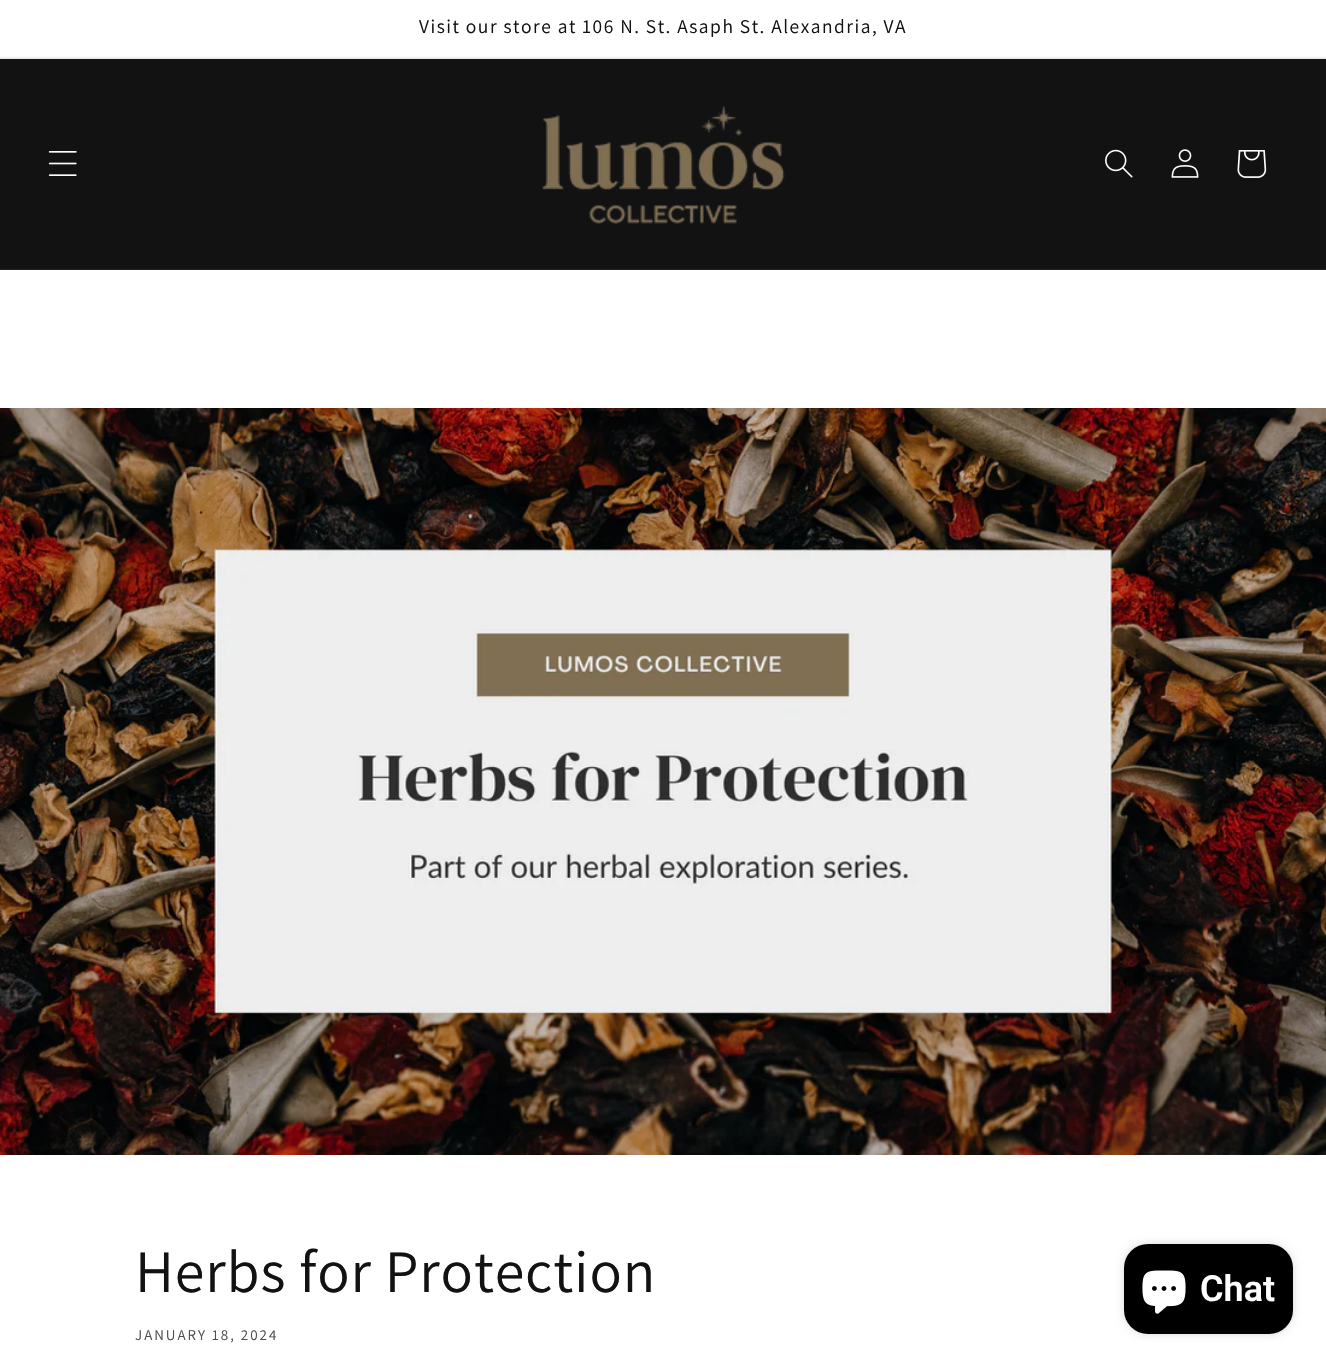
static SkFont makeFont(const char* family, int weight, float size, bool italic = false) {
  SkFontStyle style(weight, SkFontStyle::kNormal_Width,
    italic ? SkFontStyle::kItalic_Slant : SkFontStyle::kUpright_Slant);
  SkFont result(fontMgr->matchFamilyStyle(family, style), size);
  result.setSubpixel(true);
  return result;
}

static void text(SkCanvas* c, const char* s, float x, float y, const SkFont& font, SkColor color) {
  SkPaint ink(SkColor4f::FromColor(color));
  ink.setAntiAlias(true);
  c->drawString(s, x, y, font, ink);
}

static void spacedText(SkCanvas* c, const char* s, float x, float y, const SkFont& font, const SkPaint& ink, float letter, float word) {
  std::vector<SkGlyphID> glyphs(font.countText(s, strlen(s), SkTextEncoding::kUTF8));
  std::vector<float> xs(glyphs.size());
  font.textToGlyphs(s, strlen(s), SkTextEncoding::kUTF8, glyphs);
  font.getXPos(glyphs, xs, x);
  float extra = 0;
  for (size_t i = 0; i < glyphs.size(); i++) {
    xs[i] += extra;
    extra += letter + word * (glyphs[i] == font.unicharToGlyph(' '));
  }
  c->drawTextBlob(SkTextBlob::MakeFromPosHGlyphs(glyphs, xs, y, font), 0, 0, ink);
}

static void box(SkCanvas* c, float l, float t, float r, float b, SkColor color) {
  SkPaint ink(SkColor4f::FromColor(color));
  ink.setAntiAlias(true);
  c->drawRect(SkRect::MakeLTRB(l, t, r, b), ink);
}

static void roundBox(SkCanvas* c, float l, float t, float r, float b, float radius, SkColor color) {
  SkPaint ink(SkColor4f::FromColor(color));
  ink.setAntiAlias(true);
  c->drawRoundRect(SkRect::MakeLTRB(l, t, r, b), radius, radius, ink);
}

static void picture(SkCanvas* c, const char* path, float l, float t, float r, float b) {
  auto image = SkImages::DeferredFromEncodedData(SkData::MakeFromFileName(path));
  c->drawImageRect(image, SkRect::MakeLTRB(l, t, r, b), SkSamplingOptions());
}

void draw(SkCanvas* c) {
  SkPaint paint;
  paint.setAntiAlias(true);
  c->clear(0xffffffff);
  box(c, 0, 57, 1326, 59, 0xffececec);
  SkFont face1 = makeFont("Assistant", 400, 19.5f);
  paint.setColor(0xff121212);
  spacedText(c, "Visit our store at 106 N. St. Asaph St. Alexandria, VA", 419, 33, face1, paint, 1.5f, 0);
  box(c, 0, 59, 1326, 269, 0xff121212);
  box(c, 0, 269, 1326, 270, 0xff252525);
  picture(c, "img_01.png", 48, 151, 77, 176);
  picture(c, "img_02.png", 541, 105, 785, 224);
  picture(c, "img_03.png", 1105, 149, 1133, 178);
  picture(c, "img_04.png", 1171, 149, 1199, 178);
  picture(c, "img_05.png", 1237, 150, 1267, 178);
  picture(c, "img_06.png", 0, 408, 1326, 1155);
  SkFont face2 = makeFont("Assistant", 400, 60);
  spacedText(c, "Herbs for Protection", 135, 1292, face2, paint, 0.9f, 0);
  SkFont face3 = makeFont("Assistant", 400, 15);
  paint.setColor(0xff4d4d4d);
  spacedText(c, "JANUARY 18, 2024", 135, 1340, face3, paint, 2, 0);
  paint.setColor(0x26000000);
  paint.setMaskFilter(SkMaskFilter::MakeBlur(kNormal_SkBlurStyle, 4));
  c->drawRoundRect(SkRect::MakeLTRB(1124, 1244, 1293, 1334), 24, 24, paint);
  paint.setMaskFilter(nullptr);
  roundBox(c, 1124, 1244, 1293, 1334, 24, 0xff000000);
  picture(c, "img_07.png", 1142, 1270, 1186, 1314);
  SkFont face4 = makeFont("Roboto", 600, 36);
  text(c, "Chat", 1200, 1301, face4, 0xffffffff);
}
